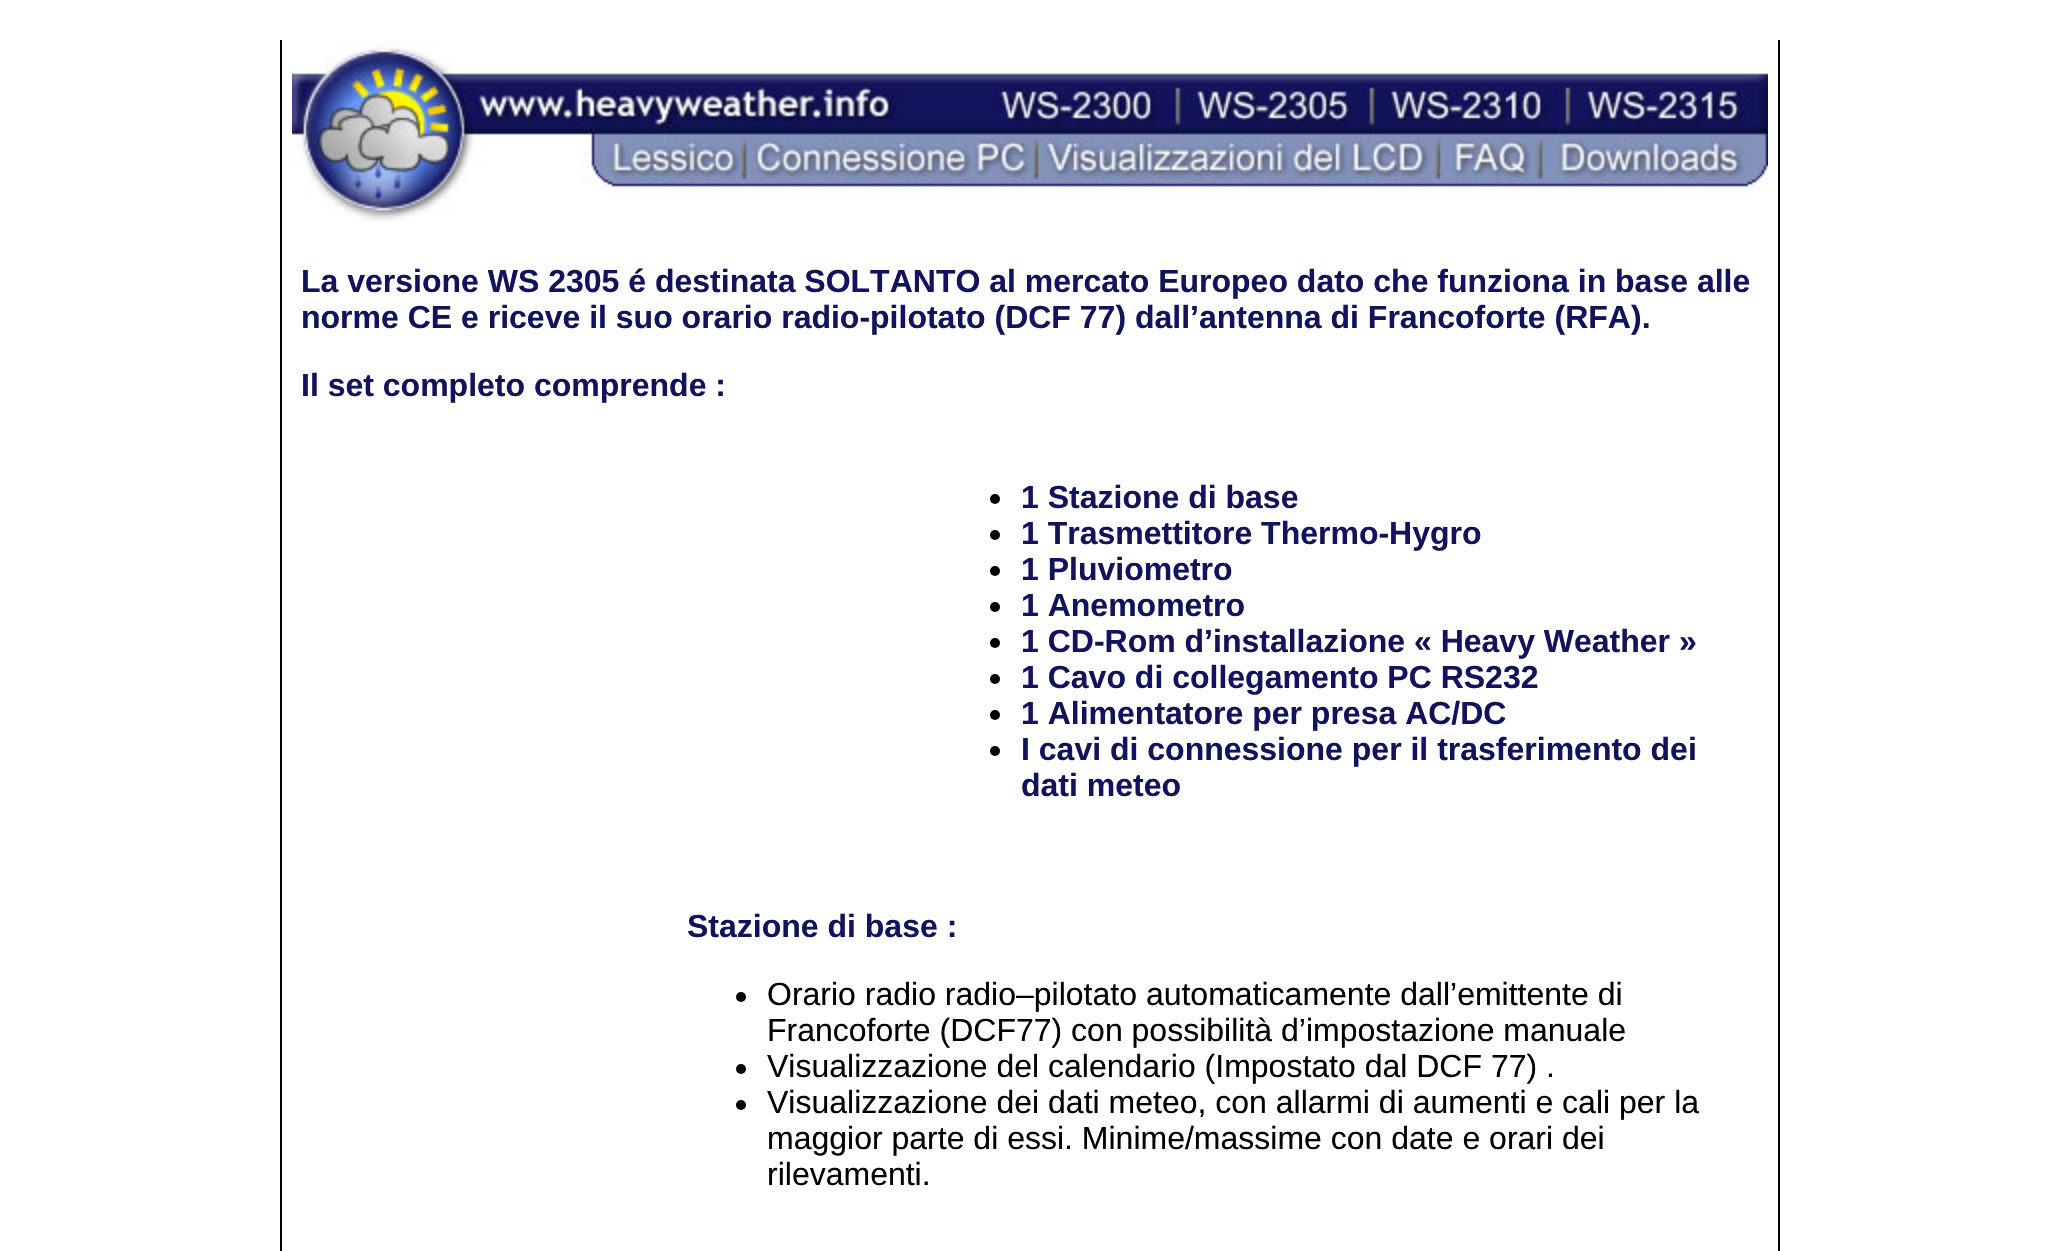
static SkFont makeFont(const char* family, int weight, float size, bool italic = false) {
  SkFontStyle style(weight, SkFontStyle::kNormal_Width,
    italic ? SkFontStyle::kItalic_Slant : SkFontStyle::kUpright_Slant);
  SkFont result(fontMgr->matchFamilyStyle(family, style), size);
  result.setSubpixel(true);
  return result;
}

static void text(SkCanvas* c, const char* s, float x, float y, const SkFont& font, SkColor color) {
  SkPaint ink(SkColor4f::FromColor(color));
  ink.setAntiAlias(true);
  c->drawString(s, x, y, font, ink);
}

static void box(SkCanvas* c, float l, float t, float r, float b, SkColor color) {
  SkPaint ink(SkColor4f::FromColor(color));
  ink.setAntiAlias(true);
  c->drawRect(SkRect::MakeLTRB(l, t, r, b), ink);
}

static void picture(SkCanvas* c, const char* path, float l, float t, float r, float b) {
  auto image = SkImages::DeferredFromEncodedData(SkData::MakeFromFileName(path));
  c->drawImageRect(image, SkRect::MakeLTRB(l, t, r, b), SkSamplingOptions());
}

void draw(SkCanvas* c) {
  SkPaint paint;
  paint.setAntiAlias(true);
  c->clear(0xffffffff);
  box(c, 280, 40, 282, 1251, 0xff000000);
  picture(c, "img_01.png", 292, 40, 1768, 222);
  SkFont face1 = makeFont("Liberation Sans", 700, 32);
  text(c, "La versione WS 2305 é destinata SOLTANTO al mercato Europeo dato che funziona in base alle", 301, 292, face1, 0xff11145c);
  text(c, "norme CE e riceve il suo orario radio-pilotato (DCF 77) dall’antenna di Francoforte (RFA).", 301, 328, face1, 0xff11145c);
  text(c, "Il set completo comprende :", 301, 396, face1, 0xff11145c);
  paint.setColor(0xff000000);
  c->drawCircle(995, 499, 5, paint);
  text(c, "1 Stazione di base", 1021, 508, face1, 0xff11145c);
  c->drawCircle(995, 535, 5, paint);
  text(c, "1 Trasmettitore Thermo-Hygro", 1021, 544, face1, 0xff11145c);
  c->drawCircle(995, 571, 5, paint);
  text(c, "1 Pluviometro", 1021, 580, face1, 0xff11145c);
  c->drawCircle(995, 607, 5, paint);
  text(c, "1 Anemometro", 1021, 616, face1, 0xff11145c);
  c->drawCircle(995, 643, 5, paint);
  text(c, "1 CD-Rom d’installazione « Heavy Weather »", 1021, 652, face1, 0xff11145c);
  c->drawCircle(995, 679, 5, paint);
  text(c, "1 Cavo di collegamento PC RS232", 1021, 688, face1, 0xff11145c);
  c->drawCircle(995, 715, 5, paint);
  text(c, "1 Alimentatore per presa AC/DC", 1021, 724, face1, 0xff11145c);
  c->drawCircle(995, 751, 5, paint);
  text(c, "I cavi di connessione per il trasferimento dei", 1021, 760, face1, 0xff11145c);
  text(c, "dati meteo", 1021, 796, face1, 0xff11145c);
  text(c, "Stazione di base :", 687, 937, face1, 0xff11145c);
  c->drawCircle(741, 997, 5, paint);
  SkFont face2 = makeFont("Liberation Sans", 400, 32);
  text(c, "Orario radio radio–pilotato automaticamente dall’emittente di", 767, 1005, face2, 0xff000000);
  text(c, "Francoforte (DCF77) con possibilità d’impostazione manuale", 767, 1041, face2, 0xff000000);
  c->drawCircle(741, 1069, 5, paint);
  text(c, "Visualizzazione del calendario (Impostato dal DCF 77) .", 767, 1077, face2, 0xff000000);
  c->drawCircle(741, 1105, 5, paint);
  text(c, "Visualizzazione dei dati meteo, con allarmi di aumenti e cali per la", 767, 1113, face2, 0xff000000);
  text(c, "maggior parte di essi. Minime/massime con date e orari dei", 767, 1149, face2, 0xff000000);
  text(c, "rilevamenti.", 767, 1185, face2, 0xff000000);
  box(c, 1778, 40, 1780, 1251, 0xff000000);
}
